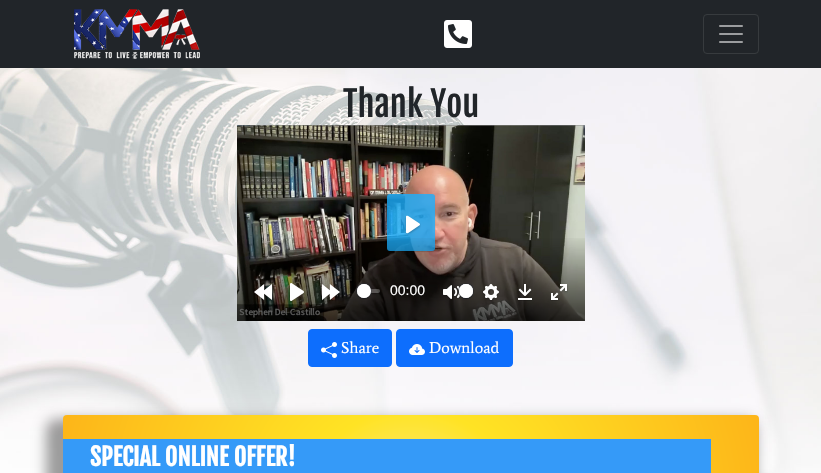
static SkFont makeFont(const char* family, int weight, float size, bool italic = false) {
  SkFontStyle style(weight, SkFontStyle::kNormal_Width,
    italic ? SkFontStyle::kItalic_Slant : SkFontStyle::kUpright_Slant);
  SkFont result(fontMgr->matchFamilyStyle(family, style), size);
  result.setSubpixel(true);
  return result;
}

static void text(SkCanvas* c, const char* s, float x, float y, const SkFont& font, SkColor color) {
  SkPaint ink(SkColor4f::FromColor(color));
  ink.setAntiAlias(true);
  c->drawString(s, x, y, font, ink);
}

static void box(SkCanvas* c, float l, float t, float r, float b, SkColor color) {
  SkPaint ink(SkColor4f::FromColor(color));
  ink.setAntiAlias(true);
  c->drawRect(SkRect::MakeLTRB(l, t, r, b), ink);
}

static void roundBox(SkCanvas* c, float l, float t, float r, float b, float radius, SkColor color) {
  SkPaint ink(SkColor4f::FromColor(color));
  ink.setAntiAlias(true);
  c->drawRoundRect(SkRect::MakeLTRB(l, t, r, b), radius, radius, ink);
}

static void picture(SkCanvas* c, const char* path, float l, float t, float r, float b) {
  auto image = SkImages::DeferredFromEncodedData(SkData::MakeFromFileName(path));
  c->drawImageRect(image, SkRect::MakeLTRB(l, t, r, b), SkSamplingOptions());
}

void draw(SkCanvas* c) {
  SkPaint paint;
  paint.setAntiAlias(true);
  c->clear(0xffffffff);
  picture(c, "img_01.png", 0, 68, 821, 473);
  box(c, 0, 0, 821, 68, 0xff212529);
  picture(c, "img_02.png", 74, 9, 200, 59);
  picture(c, "img_03.png", 444, 20, 472, 48);
  paint.setStyle(SkPaint::kStroke_Style);
  paint.setStrokeWidth(1);
  paint.setColor(0xff373b3e);
  c->drawRoundRect(SkRect::MakeLTRB(703.5f, 14.5f, 758.5f, 53.5f), 3.5f, 3.5f, paint);
  picture(c, "img_04.png", 719, 25, 743, 43);
  SkFont face1 = makeFont("Fjalla One", 400, 34.5f);
  text(c, "Thank You", 343, 117, face1, 0xff212529);
  picture(c, "img_05.png", 237, 125, 585, 321);
  c->save();
  c->clipPath(SkPathBuilder(SkPathFillType::kEvenOdd).moveTo(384, 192).lineTo(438, 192).lineTo(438, 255).lineTo(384, 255).close().moveTo(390, 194).lineTo(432, 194).cubicTo(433.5f, 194, 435, 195.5f, 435, 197).lineTo(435, 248).cubicTo(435, 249.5f, 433.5f, 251, 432, 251).lineTo(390, 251).cubicTo(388.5f, 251, 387, 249.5f, 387, 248).lineTo(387, 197).cubicTo(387, 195.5f, 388.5f, 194, 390, 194).close().detach(), true);
  paint.setStyle(SkPaint::kFill_Style);
  paint.setColor(0x26000000);
  paint.setMaskFilter(SkMaskFilter::MakeBlur(kNormal_SkBlurStyle, 0.5f));
  c->drawRoundRect(SkRect::MakeLTRB(387, 195, 435, 252), 3, 3, paint);
  paint.setMaskFilter(nullptr);
  c->restore();
  roundBox(c, 387, 194, 435, 251, 3, 0xcc1aafff);
  picture(c, "img_06.png", 404, 215, 421, 235);
  {
    const SkColor colors[] = {0x00000000, 0xb3000000};
    const float stops[] = {0, 1};
    const SkPoint ends[] = {{411, 235}, {411, 321}};
    paint.setShader(SkGradientShader::MakeLinear(ends, colors, stops, 2, SkTileMode::kClamp));
    paint.setAlpha(255);
  }
  c->drawRect(SkRect::MakeLTRB(237, 238, 585, 321), paint);
  picture(c, "img_07.png", 289, 283, 305, 302);
  picture(c, "img_10.png", 321, 283, 370, 300);
  c->save();
  c->clipPath(SkPathBuilder(SkPathFillType::kEvenOdd).moveTo(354, 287).lineTo(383, 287).lineTo(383, 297).lineTo(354, 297).close().moveTo(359, 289).lineTo(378, 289).cubicTo(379, 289, 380, 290, 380, 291).cubicTo(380, 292, 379, 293, 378, 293).lineTo(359, 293).cubicTo(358, 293, 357, 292, 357, 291).cubicTo(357, 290, 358, 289, 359, 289).close().detach(), true);
  paint.setShader(nullptr);
  paint.setColor(0x26000000);
  paint.setMaskFilter(SkMaskFilter::MakeBlur(kNormal_SkBlurStyle, 0.5f));
  c->drawRoundRect(SkRect::MakeLTRB(357, 290, 380, 294), 2, 2, paint);
  paint.setMaskFilter(nullptr);
  c->restore();
  roundBox(c, 357, 289, 380, 293, 2, 0x40ffffff);
  paint.setStyle(SkPaint::kStroke_Style);
  paint.setColor(0x332f343d);
  c->drawCircle(364, 291, 7.5f, paint);
  paint.setStyle(SkPaint::kFill_Style);
  paint.setColor(0x26000000);
  paint.setMaskFilter(SkMaskFilter::MakeBlur(kNormal_SkBlurStyle, 0.5f));
  c->drawRoundRect(SkRect::MakeLTRB(357, 285, 371, 299), 7, 7, paint);
  paint.setMaskFilter(nullptr);
  paint.setColor(0xffffffff);
  c->drawCircle(364, 291, 7, paint);
  picture(c, "img_08.png", 443, 284, 473, 299);
  picture(c, "img_11.png", 458, 284, 499, 301);
  paint.setStyle(SkPaint::kStroke_Style);
  paint.setColor(0x332f343d);
  c->drawCircle(466, 291, 7.5f, paint);
  paint.setStyle(SkPaint::kFill_Style);
  paint.setColor(0x26000000);
  paint.setMaskFilter(SkMaskFilter::MakeBlur(kNormal_SkBlurStyle, 0.5f));
  c->drawRoundRect(SkRect::MakeLTRB(459, 285, 473, 299), 7, 7, paint);
  paint.setMaskFilter(nullptr);
  paint.setColor(0xffffffff);
  c->drawCircle(466, 291, 7, paint);
  picture(c, "img_09.png", 254, 284, 272, 300);
  SkFont face2 = makeFont("Liberation Sans", 400, 14);
  text(c, "00:00", 390, 295, face2, 0xffffffff);
  picture(c, "img_12.png", 518, 284, 532, 301);
  picture(c, "img_13.png", 550, 284, 568, 301);
  paint.setColor(0xff0d6efd);
  c->drawRoundRect(SkRect::MakeLTRB(308.5f, 329.5f, 391.5f, 366.5f), 3.5f, 3.5f, paint);
  paint.setStyle(SkPaint::kStroke_Style);
  c->drawRoundRect(SkRect::MakeLTRB(308.5f, 329.5f, 391.5f, 366.5f), 3.5f, 3.5f, paint);
  picture(c, "img_14.png", 321, 342, 337, 358);
  SkFont face3 = makeFont("Average", 400, 16);
  text(c, "Share", 341, 353, face3, 0xffffffff);
  paint.setStyle(SkPaint::kFill_Style);
  c->drawRoundRect(SkRect::MakeLTRB(396.5f, 329.5f, 512.5f, 366.5f), 3.5f, 3.5f, paint);
  paint.setStyle(SkPaint::kStroke_Style);
  c->drawRoundRect(SkRect::MakeLTRB(396.5f, 329.5f, 512.5f, 366.5f), 3.5f, 3.5f, paint);
  picture(c, "img_15.png", 409, 344, 425, 355);
  text(c, "Download", 429, 353, face3, 0xffffffff);
  paint.setStyle(SkPaint::kFill_Style);
  paint.setColor(0x61000000);
  paint.setMaskFilter(SkMaskFilter::MakeBlur(kNormal_SkBlurStyle, 6.5f));
  c->drawRoundRect(SkRect::MakeLTRB(46, 419, 756, 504), 11, 11, paint);
  paint.setMaskFilter(nullptr);
  {
    const SkColor colors[] = {0xfff9ec96, 0xffffe324, 0xfffdb519};
    const float stops[] = {0, 0.3f, 1};
    paint.setShader(SkGradientShader::MakeRadial({411, 518}, 363, colors, stops, 3, SkTileMode::kClamp));
    paint.setAlpha(255);
  }
  c->drawRoundRect(SkRect::MakeLTRB(63, 415, 759, 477), 4, 4, paint);
  box(c, 63, 439, 711, 473, 0xff359af8);
  SkFont face4 = makeFont("Fjalla One", 700, 24);
  text(c, "SPECIAL ONLINE OFFER!", 90, 466, face4, 0xffffffff);
}
